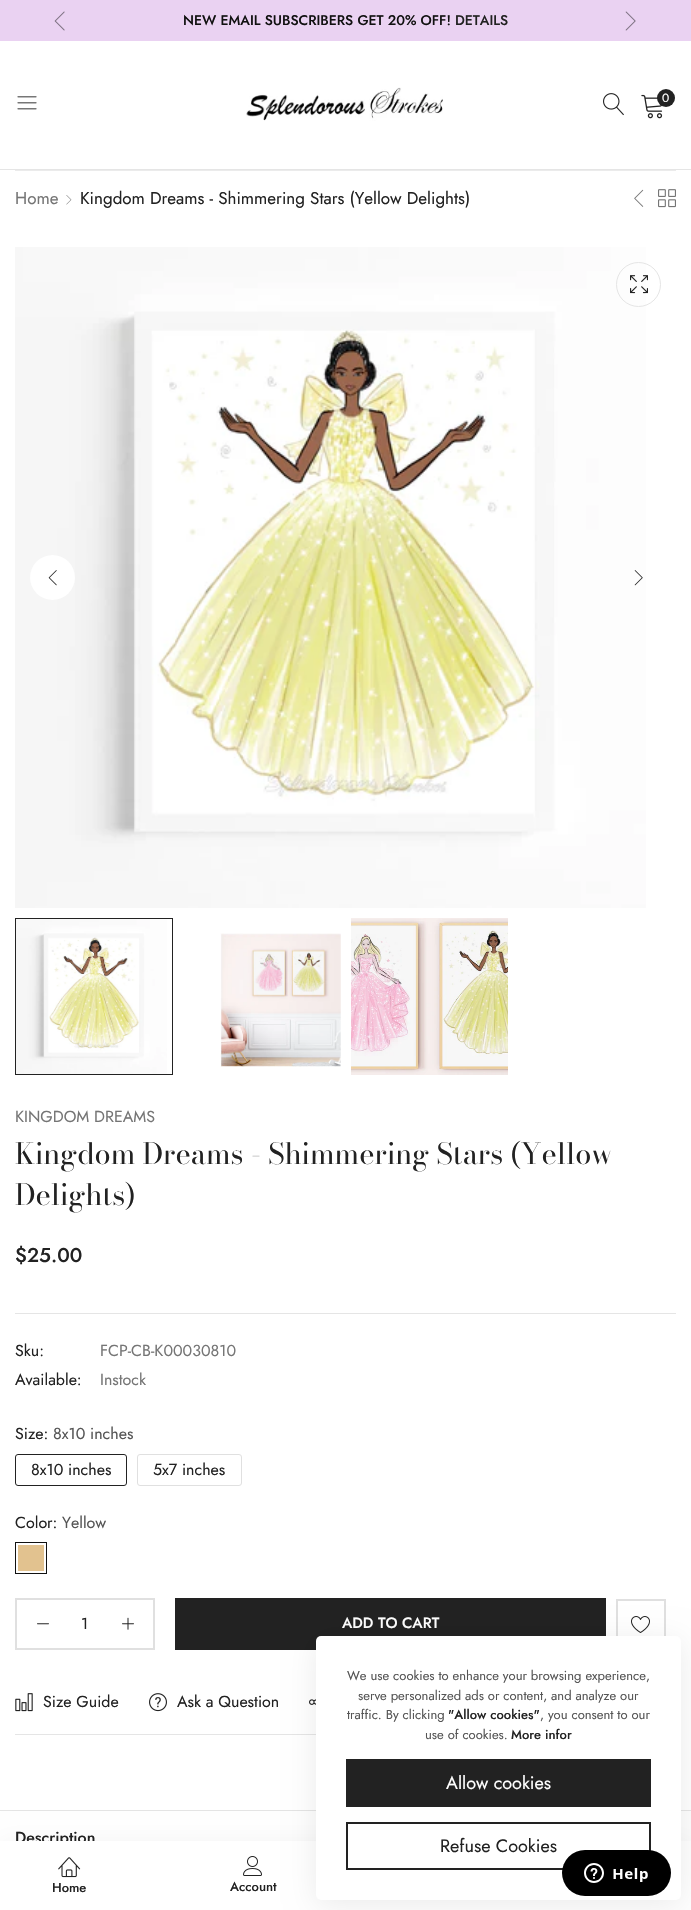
static SkFont makeFont(const char* family, int weight, float size, bool italic = false) {
  SkFontStyle style(weight, SkFontStyle::kNormal_Width,
    italic ? SkFontStyle::kItalic_Slant : SkFontStyle::kUpright_Slant);
  SkFont result(fontMgr->matchFamilyStyle(family, style), size);
  result.setSubpixel(true);
  return result;
}

static void text(SkCanvas* c, const char* s, float x, float y, const SkFont& font, SkColor color) {
  SkPaint ink(SkColor4f::FromColor(color));
  ink.setAntiAlias(true);
  c->drawString(s, x, y, font, ink);
}

static void box(SkCanvas* c, float l, float t, float r, float b, SkColor color) {
  SkPaint ink(SkColor4f::FromColor(color));
  ink.setAntiAlias(true);
  c->drawRect(SkRect::MakeLTRB(l, t, r, b), ink);
}

static void roundBox(SkCanvas* c, float l, float t, float r, float b, float radius, SkColor color) {
  SkPaint ink(SkColor4f::FromColor(color));
  ink.setAntiAlias(true);
  c->drawRoundRect(SkRect::MakeLTRB(l, t, r, b), radius, radius, ink);
}

static void picture(SkCanvas* c, const char* path, float l, float t, float r, float b) {
  auto image = SkImages::DeferredFromEncodedData(SkData::MakeFromFileName(path));
  c->drawImageRect(image, SkRect::MakeLTRB(l, t, r, b), SkSamplingOptions());
}

void draw(SkCanvas* c) {
  SkPaint paint;
  paint.setAntiAlias(true);
  c->clear(0xffffffff);
  box(c, 0, 0, 691, 41, 0xffead2f2);
  picture(c, "img_01.png", 54, 11, 65, 31);
  SkFont face1 = makeFont("Jost", 500, 14);
  text(c, "NEW EMAIL SUBSCRIBERS GET 20% OFF!", 183, 25, face1, 0xff111111);
  text(c, "DETAILS", 455, 25, face1, 0xff222222);
  picture(c, "img_02.png", 625, 11, 636, 31);
  box(c, 0, 169, 691, 170, 0xffe5e5e5);
  picture(c, "img_03.png", 17, 96, 37, 110);
  picture(c, "img_04.png", 246, 87, 443, 121);
  picture(c, "img_05.png", 603, 93, 624, 116);
  picture(c, "img_06.png", 641, 94, 663, 119);
  paint.setColor(0xff222222);
  c->drawCircle(666, 98, 9, paint);
  SkFont face2 = makeFont("Jost", 400, 12);
  text(c, "0", 662, 102, face2, 0xffffffff);
  box(c, 15, 170, 676, 171, 0xffebebeb);
  SkFont face3 = makeFont("Jost", 400, 17);
  text(c, "Home", 15, 204, face3, 0xff757575);
  picture(c, "img_07.png", 66, 195, 72, 205);
  text(c, "Kingdom Dreams - Shimmering Stars (Yellow Delights)", 80, 204, face3, 0xff222222);
  picture(c, "img_08.png", 634, 189, 644, 207);
  picture(c, "img_09.png", 658, 189, 676, 208);
  picture(c, "img_10.png", 15, 247, 646, 908);
  paint.setStyle(SkPaint::kStroke_Style);
  paint.setStrokeWidth(1);
  paint.setColor(0xffe5e5e5);
  c->drawCircle(638.5f, 284.5f, 22, paint);
  picture(c, "img_11.png", 630, 275, 648, 294);
  paint.setStyle(SkPaint::kFill_Style);
  paint.setColor(0xffffffff);
  c->drawCircle(52.5f, 577.5f, 22.5f, paint);
  picture(c, "img_12.png", 48, 570, 57, 586);
  picture(c, "img_13.png", 634, 570, 643, 586);
  picture(c, "img_14.png", 16, 919, 167, 1074);
  paint.setStyle(SkPaint::kStroke_Style);
  paint.setColor(0xff222222);
  c->drawRect(SkRect::MakeLTRB(15.5f, 918.5f, 172.5f, 1074.5f), paint);
  picture(c, "img_15.png", 220, 933, 341, 1067);
  picture(c, "img_16.png", 351, 918, 508, 1075);
  SkFont face4 = makeFont("Jost", 400, 16);
  text(c, "KINGDOM DREAMS", 15, 1122, face4, 0xff757575);
  SkFont face5 = makeFont("Bodoni Moda", 400, 29);
  text(c, "Kingdom Dreams - Shimmering Stars (Yellow", 15, 1164, face5, 0xff222222);
  text(c, "Delights)", 15, 1205, face5, 0xff222222);
  SkFont face6 = makeFont("Jost", 500, 20);
  text(c, "$25.00", 15, 1262, face6, 0xff222222);
  box(c, 15, 1313, 676, 1314, 0xffe5e5e5);
  text(c, "Sku:", 15, 1356, face4, 0xff222222);
  text(c, "FCP-CB-K00030810", 100, 1356, face4, 0xff757575);
  text(c, "Available:", 15, 1385, face4, 0xff222222);
  text(c, "Instock", 100, 1385, face4, 0xff757575);
  text(c, "Size:", 15, 1439, face4, 0xff222222);
  text(c, "8x10 inches", 53, 1439, face4, 0xff555555);
  c->drawRoundRect(SkRect::MakeLTRB(15.5f, 1454.5f, 126.5f, 1485.5f), 2.5f, 2.5f, paint);
  text(c, "8x10 inches", 31, 1475, face4, 0xff222222);
  paint.setColor(0xffe0e0e0);
  c->drawRoundRect(SkRect::MakeLTRB(137.5f, 1454.5f, 241.5f, 1485.5f), 2.5f, 2.5f, paint);
  text(c, "5x7 inches", 153, 1475, face4, 0xff222222);
  text(c, "Color:", 15, 1528, face4, 0xff222222);
  text(c, "Yellow", 62, 1528, face4, 0xff555555);
  paint.setColor(0xff111111);
  c->drawRect(SkRect::MakeLTRB(15.5f, 1542.5f, 46.5f, 1573.5f), paint);
  box(c, 18, 1545, 44, 1571, 0xffe2c28f);
  paint.setStrokeWidth(2);
  paint.setColor(0xffe0e0e0);
  c->drawRect(SkRect::MakeLTRB(16, 1599, 154, 1649), paint);
  picture(c, "img_17.png", 37, 1623, 49, 1625);
  text(c, "1", 81, 1629, face4, 0xff222222);
  picture(c, "img_18.png", 122, 1617, 134, 1630);
  box(c, 175, 1598, 606, 1650, 0xff222222);
  SkFont face7 = makeFont("Jost", 500, 15);
  text(c, "ADD TO CART", 342, 1628, face7, 0xffffffff);
  c->drawRect(SkRect::MakeLTRB(617, 1600, 665, 1648), paint);
  picture(c, "img_19.png", 631, 1616, 650, 1633);
  box(c, 15, 1734, 316, 1735, 0xffe5e5e5);
  picture(c, "img_20.png", 15, 1693, 33, 1712);
  text(c, "Size Guide", 43, 1707, face4, 0xff222222);
  picture(c, "img_21.png", 149, 1693, 167, 1712);
  text(c, "Ask a Question", 177, 1707, face4, 0xff222222);
  picture(c, "img_22.png", 309, 1699, 316, 1705);
  box(c, 0, 1810, 691, 1811, 0xffe5e5e5);
  SkFont face8 = makeFont("Jost", 500, 16);
  text(c, "Description", 15, 1843, face8, 0xff222222);
  paint.setStyle(SkPaint::kFill_Style);
  paint.setColor(0x0f000000);
  paint.setMaskFilter(SkMaskFilter::MakeBlur(kNormal_SkBlurStyle, 15));
  c->drawRect(SkRect::MakeLTRB(0, 1846, 691, 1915), paint);
  paint.setMaskFilter(nullptr);
  box(c, 0, 1841, 691, 1910, 0xffffffff);
  picture(c, "img_23.png", 58, 1857, 81, 1878);
  SkFont face9 = makeFont("Jost", 500, 13);
  text(c, "Home", 52, 1892, face9, 0xff222222);
  picture(c, "img_24.png", 243, 1856, 262, 1876);
  text(c, "Account", 230, 1891, face9, 0xff222222);
  paint.setColor(0x14000000);
  paint.setMaskFilter(SkMaskFilter::MakeBlur(kNormal_SkBlurStyle, 15));
  c->drawRoundRect(SkRect::MakeLTRB(316, 1641, 681, 1905), 5, 5, paint);
  paint.setMaskFilter(nullptr);
  roundBox(c, 316, 1636, 681, 1900, 5, 0xffffffff);
  SkFont face10 = makeFont("Jost", 400, 13);
  text(c, "We use cookies to enhance your browsing experience,", 347, 1680, face10, 0xff555555);
  text(c, "serve personalized ads or content, and analyze our", 358, 1700, face10, 0xff555555);
  text(c, "traffic. By clicking", 347, 1719, face10, 0xff555555);
  text(c, "\"Allow cookies\"", 448, 1719, face9, 0xff222222);
  text(c, ", you consent to our", 540, 1719, face10, 0xff555555);
  text(c, "use of cookies.", 425, 1739, face10, 0xff555555);
  text(c, "More infor", 511, 1739, face9, 0xff222222);
  box(c, 346, 1759, 651, 1807, 0xff222222);
  SkFont face11 = makeFont("Jost", 400, 18);
  text(c, "Allow cookies", 446, 1789, face11, 0xffffffff);
  paint.setStyle(SkPaint::kStroke_Style);
  paint.setColor(0xff222222);
  c->drawRect(SkRect::MakeLTRB(347, 1823, 650, 1869), paint);
  text(c, "Refuse Cookies", 440, 1852, face11, 0xff222222);
  picture(c, "img_25.png", 562, 1850, 671, 1896);
}
